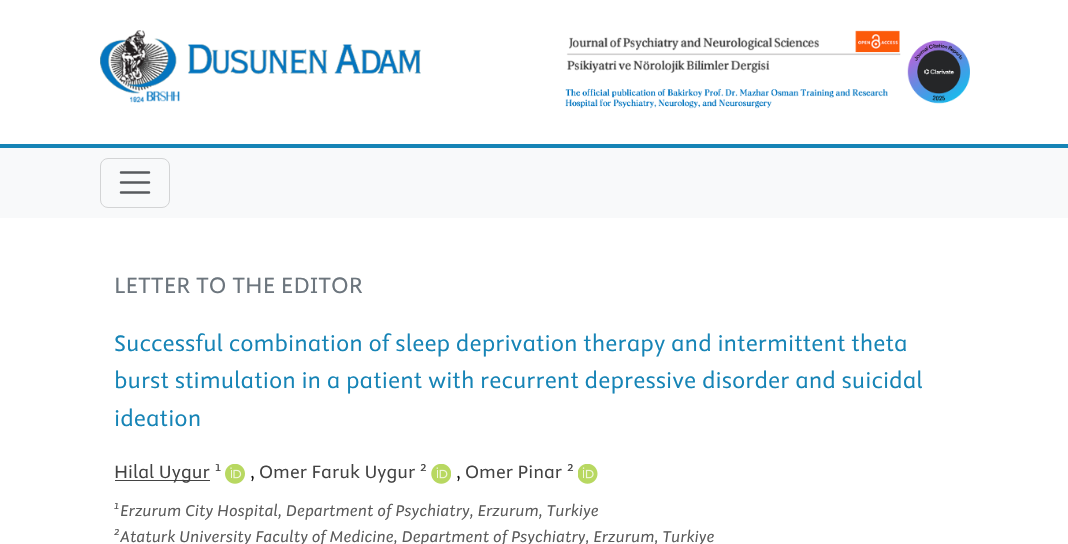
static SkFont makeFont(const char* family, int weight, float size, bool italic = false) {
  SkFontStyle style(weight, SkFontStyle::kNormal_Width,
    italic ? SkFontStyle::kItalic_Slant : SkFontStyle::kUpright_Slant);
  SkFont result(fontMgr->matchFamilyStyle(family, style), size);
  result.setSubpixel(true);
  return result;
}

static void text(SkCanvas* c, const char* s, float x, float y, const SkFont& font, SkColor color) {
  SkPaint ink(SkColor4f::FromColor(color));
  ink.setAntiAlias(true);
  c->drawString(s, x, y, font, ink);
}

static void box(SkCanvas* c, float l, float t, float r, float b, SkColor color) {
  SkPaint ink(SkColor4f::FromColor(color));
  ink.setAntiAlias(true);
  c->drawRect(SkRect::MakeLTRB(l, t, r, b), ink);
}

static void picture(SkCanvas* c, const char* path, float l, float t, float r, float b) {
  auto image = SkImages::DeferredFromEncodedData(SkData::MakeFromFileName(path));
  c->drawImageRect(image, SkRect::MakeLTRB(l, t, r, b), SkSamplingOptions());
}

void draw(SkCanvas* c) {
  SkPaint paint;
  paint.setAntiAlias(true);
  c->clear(0xffffffff);
  box(c, 0, 144, 1068, 148, 0xff1684b6);
  picture(c, "img_01.png", 100, 30, 970, 109);
  box(c, 0, 148, 1068, 218, 0xfff8f9fa);
  paint.setStyle(SkPaint::kStroke_Style);
  paint.setStrokeWidth(1);
  paint.setColor(0xffd3d4d5);
  c->drawRoundRect(SkRect::MakeLTRB(100.5f, 158.5f, 169.5f, 207.5f), 7.5f, 7.5f, paint);
  paint.setStrokeWidth(2.5f);
  paint.setStrokeCap(SkPaint::kRound_Cap);
  paint.setColor(0xff575a5d);
  c->drawPath(SkPathBuilder().moveTo(121, 172.5f).lineTo(149, 172.5f).moveTo(121, 182.5f).lineTo(149, 182.5f).moveTo(121, 192.5f).lineTo(149, 192.5f).detach(), paint);
  SkFont face1 = makeFont("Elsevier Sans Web", 400, 25);
  text(c, "LETTER TO THE EDITOR", 114, 293, face1, 0xff6c757d);
  text(c, "Successful combination of sleep deprivation therapy and intermittent theta", 114, 351, face1, 0xff1684b6);
  text(c, "burst stimulation in a patient with recurrent depressive disorder and suicidal", 114, 388, face1, 0xff1684b6);
  text(c, "ideation", 114, 426, face1, 0xff1684b6);
  box(c, 115, 480, 210, 481, 0xff434343);
  SkFont face2 = makeFont("Elsevier Sans Web", 400, 20);
  text(c, "Hilal Uygur", 114, 478, face2, 0xff434343);
  SkFont face3 = makeFont("Elsevier Sans Web", 400, 15);
  text(c, "1", 215, 471, face3, 0xff434343);
  picture(c, "img_02.png", 225, 464, 245, 484);
  text(c, ",", 250, 478, face2, 0xff141414);
  text(c, "Omer Faruk Uygur", 259, 478, face2, 0xff434343);
  text(c, "2", 420, 471, face3, 0xff434343);
  picture(c, "img_03.png", 431, 464, 451, 484);
  text(c, ",", 456, 478, face2, 0xff141414);
  text(c, "Omer Pinar", 465, 478, face2, 0xff434343);
  text(c, "2", 567, 471, face3, 0xff434343);
  picture(c, "img_04.png", 578, 464, 598, 484);
  SkFont face4 = makeFont("Elsevier Sans Web", 400, 13, true);
  text(c, "1", 114, 509, face4, 0xff5b5b5b);
  SkFont face5 = makeFont("Elsevier Sans Web", 400, 17.5f, true);
  text(c, "Erzurum City Hospital, Department of Psychiatry, Erzurum, Turkiye", 120, 516, face5, 0xff5b5b5b);
  text(c, "2", 114, 535, face4, 0xff5b5b5b);
  text(c, "Ataturk University Faculty of Medicine, Department of Psychiatry, Erzurum, Turkiye", 120, 542, face5, 0xff5b5b5b);
}
